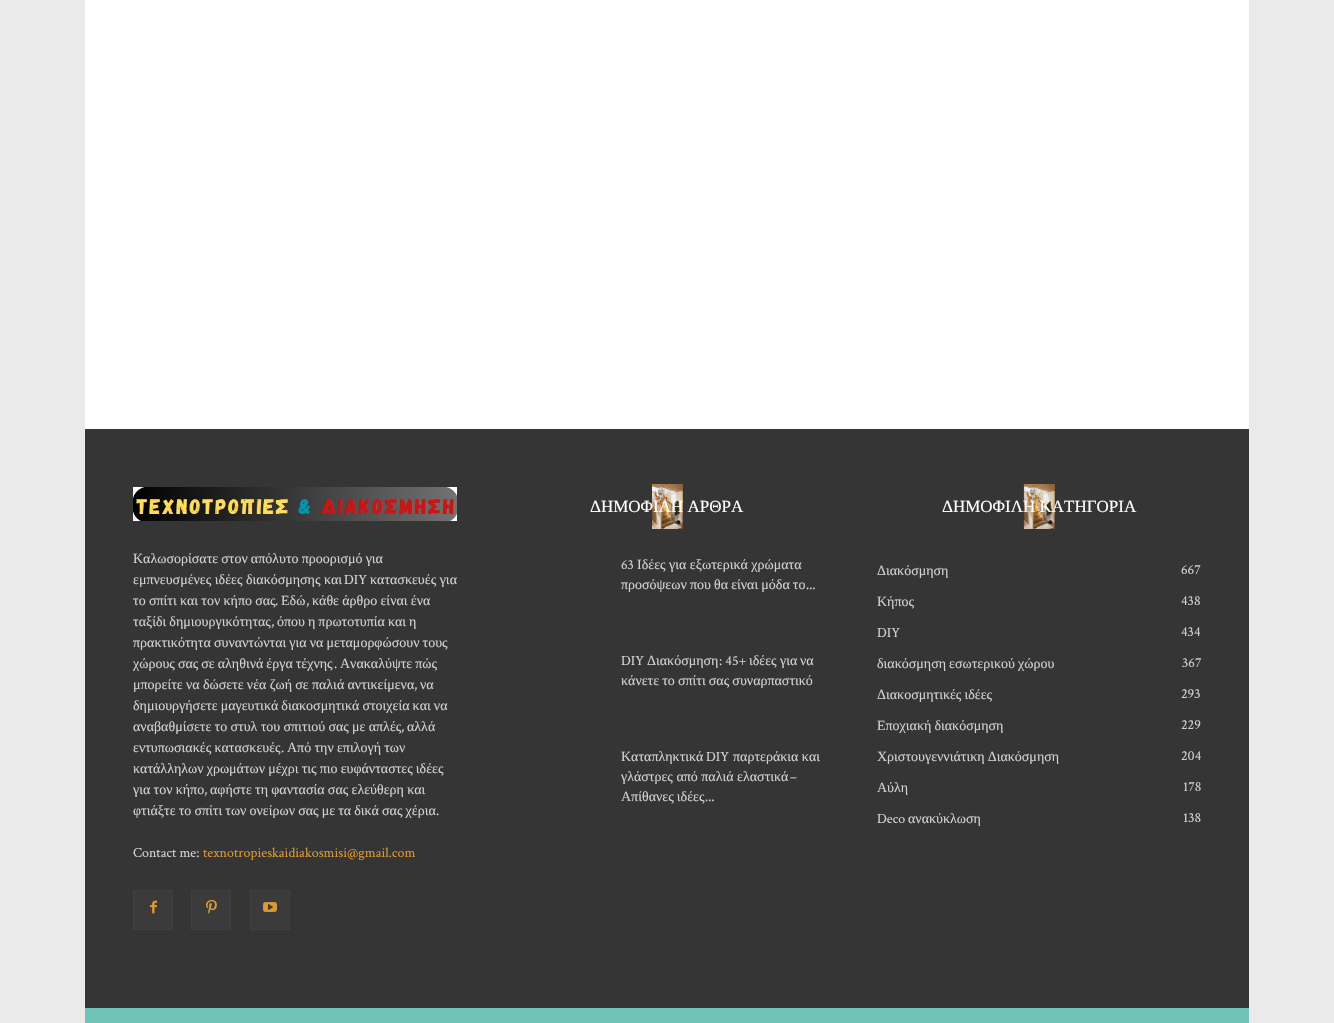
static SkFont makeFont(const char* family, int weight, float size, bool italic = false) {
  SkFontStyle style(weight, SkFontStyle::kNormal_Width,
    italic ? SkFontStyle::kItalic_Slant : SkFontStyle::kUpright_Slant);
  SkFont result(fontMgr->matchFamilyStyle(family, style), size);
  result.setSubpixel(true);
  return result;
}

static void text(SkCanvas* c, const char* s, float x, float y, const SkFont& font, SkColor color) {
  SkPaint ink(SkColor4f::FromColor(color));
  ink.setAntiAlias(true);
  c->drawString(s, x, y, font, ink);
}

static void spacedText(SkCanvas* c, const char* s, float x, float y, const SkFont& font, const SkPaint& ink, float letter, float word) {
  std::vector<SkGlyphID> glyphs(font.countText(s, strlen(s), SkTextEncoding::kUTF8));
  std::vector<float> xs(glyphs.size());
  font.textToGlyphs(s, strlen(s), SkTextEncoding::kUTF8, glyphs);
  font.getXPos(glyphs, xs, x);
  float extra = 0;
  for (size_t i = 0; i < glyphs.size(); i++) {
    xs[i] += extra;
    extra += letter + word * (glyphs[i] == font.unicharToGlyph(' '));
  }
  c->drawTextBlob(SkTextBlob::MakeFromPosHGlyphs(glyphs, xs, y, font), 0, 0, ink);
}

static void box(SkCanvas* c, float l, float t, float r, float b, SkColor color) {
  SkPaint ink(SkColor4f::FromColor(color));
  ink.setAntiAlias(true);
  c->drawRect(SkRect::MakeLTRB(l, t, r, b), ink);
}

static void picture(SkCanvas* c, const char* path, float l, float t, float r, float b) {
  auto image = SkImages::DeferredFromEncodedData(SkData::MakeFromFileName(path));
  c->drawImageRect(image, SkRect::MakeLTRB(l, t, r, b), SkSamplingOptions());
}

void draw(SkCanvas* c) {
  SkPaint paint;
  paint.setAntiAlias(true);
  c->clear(0xffeaeaea);
  box(c, 85, 0, 1249, 429, 0xffffffff);
  box(c, 85, 429, 1249, 1008, 0xff353535);
  picture(c, "img_01.png", 133, 487, 457, 521);
  SkFont face1 = makeFont("Liberation Serif", 400, 14);
  paint.setColor(0xffd1d1d1);
  spacedText(c, "Καλωσορίσατε στον απόλυτο προορισμό για", 133, 563, face1, paint, 0, -0.4f);
  text(c, "εμπνευσμένες ιδέες διακόσμησης και", 133, 584, face1, 0xffd1d1d1);
  SkFont face2 = makeFont("Crimson Text", 400, 14);
  text(c, "DIY", 344, 584, face2, 0xffd1d1d1);
  text(c, "κατασκευές για", 370, 584, face1, 0xffd1d1d1);
  spacedText(c, "το σπίτι και τον κήπο σας", 133, 605, face1, paint, 0, -0.25f);
  text(c, ".", 275, 605, face2, 0xffd1d1d1);
  text(c, "Εδώ", 281, 605, face1, 0xffd1d1d1);
  text(c, ",", 306, 605, face2, 0xffd1d1d1);
  spacedText(c, "κάθε άρθρο είναι ένα", 312, 605, face1, paint, 0, -0.25f);
  spacedText(c, "ταξίδι δημιουργικότητας", 133, 626, face1, paint, 0, -0.5f);
  text(c, ",", 271, 626, face2, 0xffd1d1d1);
  spacedText(c, "όπου η πρωτοτυπία και η", 277, 626, face1, paint, 0, -0.5f);
  spacedText(c, "πρακτικότητα συναντώνται για να μεταμορφώσουν τους", 133, 647, face1, paint, 0, -0.4f);
  spacedText(c, "χώρους σας σε αληθινά έργα τέχνης", 133, 668, face1, paint, 0, -0.5f);
  text(c, ".", 334, 668, face2, 0xffd1d1d1);
  spacedText(c, "Ανακαλύψτε πώς", 340, 668, face1, paint, 0, -0.5f);
  spacedText(c, "μπορείτε να δώσετε νέα ζωή σε παλιά αντικείμενα", 133, 689, face1, paint, 0, -0.25f);
  text(c, ",", 414, 689, face2, 0xffd1d1d1);
  text(c, "να", 420, 689, face1, 0xffd1d1d1);
  spacedText(c, "δημιουργήσετε μαγευτικά διακοσμητικά στοιχεία και να", 133, 710, face1, paint, 0, -0.4f);
  spacedText(c, "αναβαθμίσετε το στυλ του σπιτιού σας με απλές", 133, 731, face1, paint, 0, -0.25f);
  text(c, ",", 401, 731, face2, 0xffd1d1d1);
  text(c, "αλλά", 407, 731, face1, 0xffd1d1d1);
  spacedText(c, "εντυπωσιακές κατασκευές", 133, 752, face1, paint, 0, -0.25f);
  text(c, ".", 281, 752, face2, 0xffd1d1d1);
  spacedText(c, "Από την επιλογή των", 287, 752, face1, paint, 0, -0.25f);
  spacedText(c, "κατάλληλων χρωμάτων μέχρι τις πιο ευφάνταστες ιδέες", 133, 773, face1, paint, 0, -0.4f);
  spacedText(c, "για τον κήπο", 133, 794, face1, paint, 0, -0.25f);
  text(c, ",", 204, 794, face2, 0xffd1d1d1);
  spacedText(c, "αφήστε τη φαντασία σας ελεύθερη και", 210, 794, face1, paint, 0, -0.25f);
  spacedText(c, "φτιάξτε το σπίτι των ονείρων σας με τα δικά σας χέρια", 133, 815, face1, paint, 0, -0.4f);
  text(c, ".", 436, 815, face2, 0xffd1d1d1);
  text(c, "Contact me:", 133, 857, face2, 0xffd1d1d1);
  text(c, "texnotropieskaidiakosmisi@gmail.com", 203, 857, face2, 0xffdd9933);
  box(c, 134, 891, 172, 929, 0xff3b3b3b);
  picture(c, "img_02.png", 150, 900, 157, 914);
  paint.setStyle(SkPaint::kStroke_Style);
  paint.setStrokeWidth(1);
  paint.setColor(0xff404040);
  c->drawRect(SkRect::MakeLTRB(133.5f, 890.5f, 172.5f, 929.5f), paint);
  box(c, 192, 891, 230, 929, 0xff3b3b3b);
  picture(c, "img_03.png", 206, 900, 217, 914);
  c->drawRect(SkRect::MakeLTRB(191.5f, 890.5f, 230.5f, 929.5f), paint);
  box(c, 251, 891, 289, 929, 0xff3b3b3b);
  picture(c, "img_04.png", 263, 902, 277, 912);
  c->drawRect(SkRect::MakeLTRB(250.5f, 890.5f, 289.5f, 929.5f), paint);
  picture(c, "img_05.png", 652, 484, 683, 529);
  SkFont face3 = makeFont("Liberation Serif", 400, 17);
  text(c, "ΔΗΜΟΦΙΛΗ ΑΡΘΡΑ", 590, 512, face3, 0xffffffff);
  text(c, "63", 621, 569, face2, 0xffd1d1d1);
  text(c, "Ιδέες για εξωτερικά χρώματα", 637, 569, face1, 0xffd1d1d1);
  paint.setStyle(SkPaint::kFill_Style);
  paint.setColor(0xffd1d1d1);
  spacedText(c, "προσόψεων που θα είναι μόδα το", 621, 589, face1, paint, 0, -0.4f);
  text(c, "...", 806, 589, face2, 0xffd1d1d1);
  text(c, "DIY", 621, 665, face2, 0xffd1d1d1);
  text(c, "Διακόσμηση", 647, 665, face1, 0xffd1d1d1);
  text(c, ": 45+", 719, 665, face2, 0xffd1d1d1);
  text(c, "ιδέες", 749, 665, face1, 0xffd1d1d1);
  text(c, "για", 780, 665, face1, 0xffd1d1d1);
  text(c, "να", 800, 665, face1, 0xffd1d1d1);
  spacedText(c, "κάνετε το σπίτι σας συναρπαστικό", 621, 685, face1, paint, 0, -0.4f);
  text(c, "Καταπληκτικά", 621, 761, face1, 0xffd1d1d1);
  text(c, "DIY", 706, 761, face2, 0xffd1d1d1);
  text(c, "παρτεράκια και", 733, 761, face1, 0xffd1d1d1);
  text(c, "γλάστρες από παλιά ελαστικά", 621, 781, face1, 0xffd1d1d1);
  text(c, "–", 790, 781, face2, 0xffd1d1d1);
  spacedText(c, "Απίθανες ιδέες", 621, 801, face1, paint, 0, -0.4f);
  text(c, "...", 705, 801, face2, 0xffd1d1d1);
  picture(c, "img_06.png", 1023, 484, 1055, 529);
  text(c, "ΔΗΜΟΦΙΛΗ ΚΑΤΗΓΟΡΙΑ", 942, 512, face3, 0xffffffff);
  text(c, "Διακόσμηση", 877, 575, face1, 0xffd1d1d1);
  text(c, "667", 1181, 574, face2, 0xffd1d1d1);
  text(c, "Κήπος", 877, 606, face1, 0xffd1d1d1);
  text(c, "438", 1181, 605, face2, 0xffd1d1d1);
  text(c, "DIY", 877, 637, face2, 0xffd1d1d1);
  text(c, "434", 1181, 636, face2, 0xffd1d1d1);
  spacedText(c, "διακόσμηση εσωτερικού χώρου", 877, 668, face1, paint, 0, -0.4f);
  text(c, "367", 1182, 667, face2, 0xffd1d1d1);
  spacedText(c, "Διακοσμητικές ιδέες", 877, 699, face1, paint, 0, -0.4f);
  text(c, "293", 1181, 698, face2, 0xffd1d1d1);
  spacedText(c, "Εποχιακή διακόσμηση", 877, 730, face1, paint, 0, -0.4f);
  text(c, "229", 1181, 729, face2, 0xffd1d1d1);
  spacedText(c, "Χριστουγεννιάτικη Διακόσμηση", 877, 761, face1, paint, 0, -0.4f);
  text(c, "204", 1181, 760, face2, 0xffd1d1d1);
  text(c, "Αύλη", 877, 792, face1, 0xffd1d1d1);
  text(c, "178", 1183, 791, face2, 0xffd1d1d1);
  text(c, "Deco", 877, 823, face2, 0xffd1d1d1);
  text(c, "ανακύκλωση", 908, 823, face1, 0xffd1d1d1);
  text(c, "138", 1183, 822, face2, 0xffd1d1d1);
  box(c, 85, 1008, 1249, 1023, 0xff70c3b7);
}
